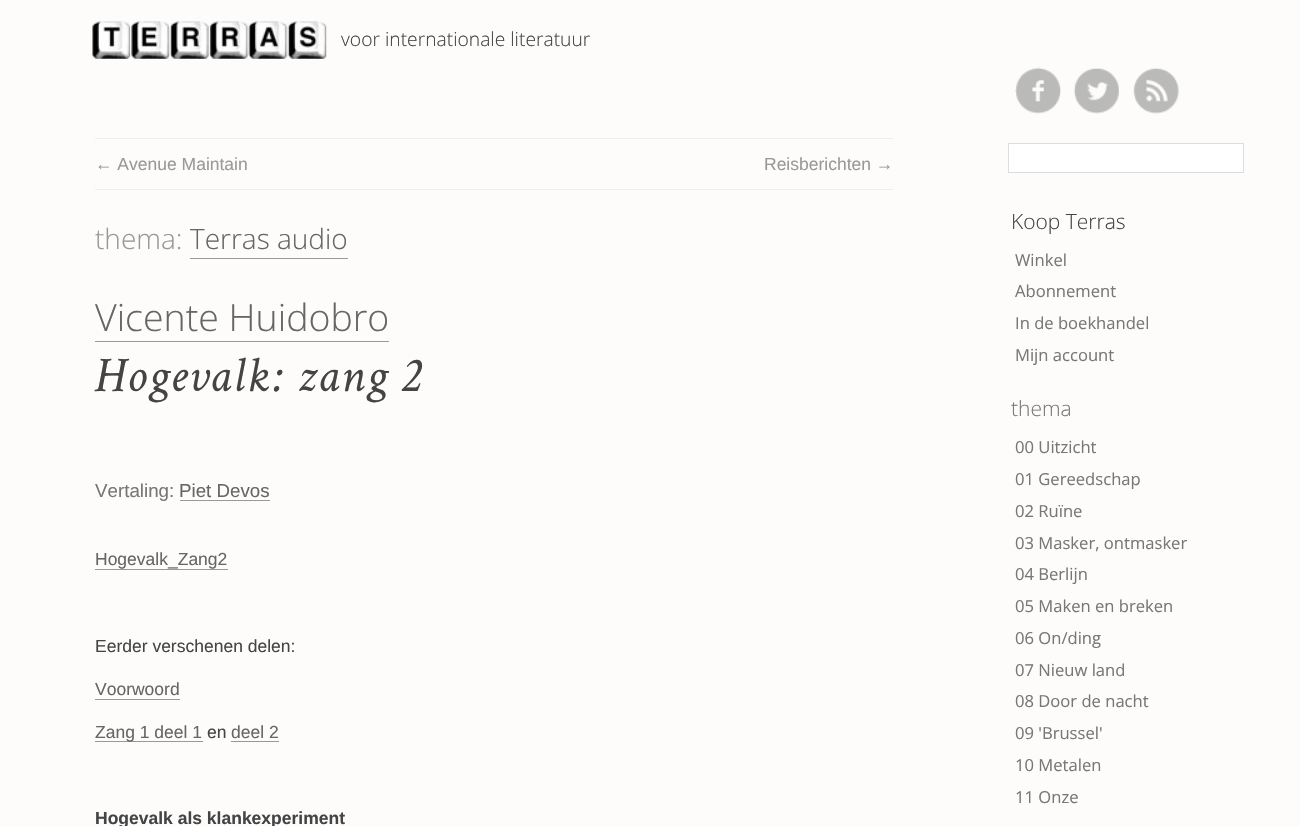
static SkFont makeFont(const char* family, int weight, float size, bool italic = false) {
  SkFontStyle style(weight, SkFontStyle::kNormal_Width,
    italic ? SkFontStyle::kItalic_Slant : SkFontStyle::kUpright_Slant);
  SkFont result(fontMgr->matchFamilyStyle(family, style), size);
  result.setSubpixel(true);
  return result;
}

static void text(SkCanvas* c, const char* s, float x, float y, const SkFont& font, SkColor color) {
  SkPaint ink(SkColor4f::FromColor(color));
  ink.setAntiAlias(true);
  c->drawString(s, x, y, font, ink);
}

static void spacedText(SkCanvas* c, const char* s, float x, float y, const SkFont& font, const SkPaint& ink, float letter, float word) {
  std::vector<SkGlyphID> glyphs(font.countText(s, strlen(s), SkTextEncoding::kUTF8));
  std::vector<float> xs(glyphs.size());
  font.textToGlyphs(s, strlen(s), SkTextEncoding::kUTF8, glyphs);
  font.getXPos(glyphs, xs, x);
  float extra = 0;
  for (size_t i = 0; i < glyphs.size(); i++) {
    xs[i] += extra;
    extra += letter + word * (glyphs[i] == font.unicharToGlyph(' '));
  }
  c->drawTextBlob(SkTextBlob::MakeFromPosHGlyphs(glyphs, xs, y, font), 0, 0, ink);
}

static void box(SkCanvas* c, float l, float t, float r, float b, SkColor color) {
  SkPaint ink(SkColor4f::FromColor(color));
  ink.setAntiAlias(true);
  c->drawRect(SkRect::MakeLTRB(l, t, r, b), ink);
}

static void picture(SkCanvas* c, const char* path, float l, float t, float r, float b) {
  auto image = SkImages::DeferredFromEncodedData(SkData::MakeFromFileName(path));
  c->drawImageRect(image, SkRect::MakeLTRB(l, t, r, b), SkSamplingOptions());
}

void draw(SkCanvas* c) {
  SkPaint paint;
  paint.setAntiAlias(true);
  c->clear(0xfffdfcfa);
  picture(c, "img_01.png", 92, 21, 327, 59);
  SkFont face1 = makeFont("Open Sans", 300, 19.25f);
  text(c, "voor internationale literatuur", 341, 46, face1, 0xff444444);
  box(c, 95, 138, 893, 139, 0xffeeeeee);
  box(c, 95, 189, 893, 190, 0xffeeeeee);
  SkFont face2 = makeFont("Liberation Sans", 400, 17.5f);
  text(c, "← Avenue Maintain", 95, 170, face2, 0xff999999);
  text(c, "Reisberichten →", 764, 170, face2, 0xff999999);
  SkFont face3 = makeFont("Open Sans", 300, 28);
  text(c, "thema:", 95, 249, face3, 0xff999999);
  text(c, "Terras audio", 190, 249, face3, 0xff666666);
  box(c, 190, 258, 348, 259, 0xff999999);
  SkFont face4 = makeFont("Open Sans", 300, 37.5f);
  text(c, "Vicente Huidobro", 95, 331, face4, 0xff666666);
  box(c, 95, 341, 389, 342, 0xff999999);
  SkFont face5 = makeFont("Crimson Text", 400, 50, true);
  paint.setColor(0xff444444);
  spacedText(c, "Hogevalk: zang 2", 95, 391, face5, paint, 1, 0);
  SkFont face6 = makeFont("Liberation Sans", 400, 18.75f);
  text(c, "Vertaling:", 95, 497, face6, 0xff777777);
  text(c, "Piet Devos", 179, 497, face6, 0xff666666);
  box(c, 180, 500, 270, 501, 0xff999999);
  text(c, "Hogevalk_Zang2", 95, 565, face2, 0xff666666);
  box(c, 95, 569, 228, 570, 0xff999999);
  text(c, "Eerder verschenen delen:", 95, 652, face2, 0xff444444);
  text(c, "Voorwoord", 95, 695, face2, 0xff666666);
  box(c, 95, 699, 180, 700, 0xff999999);
  box(c, 95, 741, 203, 742, 0xff999999);
  text(c, "Zang 1 deel 1", 95, 738, face2, 0xff666666);
  text(c, "en", 207, 738, face2, 0xff444444);
  text(c, "deel 2", 231, 738, face2, 0xff666666);
  box(c, 231, 741, 279, 742, 0xff999999);
  SkFont face7 = makeFont("Liberation Sans", 700, 17.5f);
  text(c, "Hogevalk als klankexperiment", 95, 824, face7, 0xff444444);
  picture(c, "img_02.png", 1015, 67, 1061, 114);
  picture(c, "img_03.png", 1074, 68, 1119, 114);
  picture(c, "img_04.png", 1133, 68, 1179, 114);
  paint.setColor(0xffffffff);
  c->drawRect(SkRect::MakeLTRB(1008.5f, 143.5f, 1243.5f, 172.5f), paint);
  paint.setStyle(SkPaint::kStroke_Style);
  paint.setStrokeWidth(1);
  paint.setColor(0xffdddddd);
  c->drawRect(SkRect::MakeLTRB(1008.5f, 143.5f, 1243.5f, 172.5f), paint);
  SkFont face8 = makeFont("Open Sans", 300, 21);
  text(c, "Koop Terras", 1011, 229, face8, 0xff444444);
  SkFont face9 = makeFont("Open Sans", 400, 16.6f);
  text(c, "Winkel", 1015, 266, face9, 0xff777777);
  text(c, "Abonnement", 1015, 297, face9, 0xff777777);
  text(c, "In de boekhandel", 1015, 329, face9, 0xff777777);
  text(c, "Mijn account", 1015, 361, face9, 0xff777777);
  text(c, "thema", 1011, 416, face8, 0xff777777);
  text(c, "00 Uitzicht", 1015, 453, face9, 0xff777777);
  text(c, "01 Gereedschap", 1015, 485, face9, 0xff777777);
  text(c, "02 Ruïne", 1015, 517, face9, 0xff777777);
  text(c, "03 Masker, ontmasker", 1015, 549, face9, 0xff777777);
  text(c, "04 Berlijn", 1015, 580, face9, 0xff777777);
  text(c, "05 Maken en breken", 1015, 612, face9, 0xff777777);
  text(c, "06 On/ding", 1015, 644, face9, 0xff777777);
  text(c, "07 Nieuw land", 1015, 676, face9, 0xff777777);
  text(c, "08 Door de nacht", 1015, 707, face9, 0xff777777);
  text(c, "09 'Brussel'", 1015, 739, face9, 0xff777777);
  text(c, "10 Metalen", 1015, 771, face9, 0xff777777);
  text(c, "11 Onze", 1015, 803, face9, 0xff777777);
}
